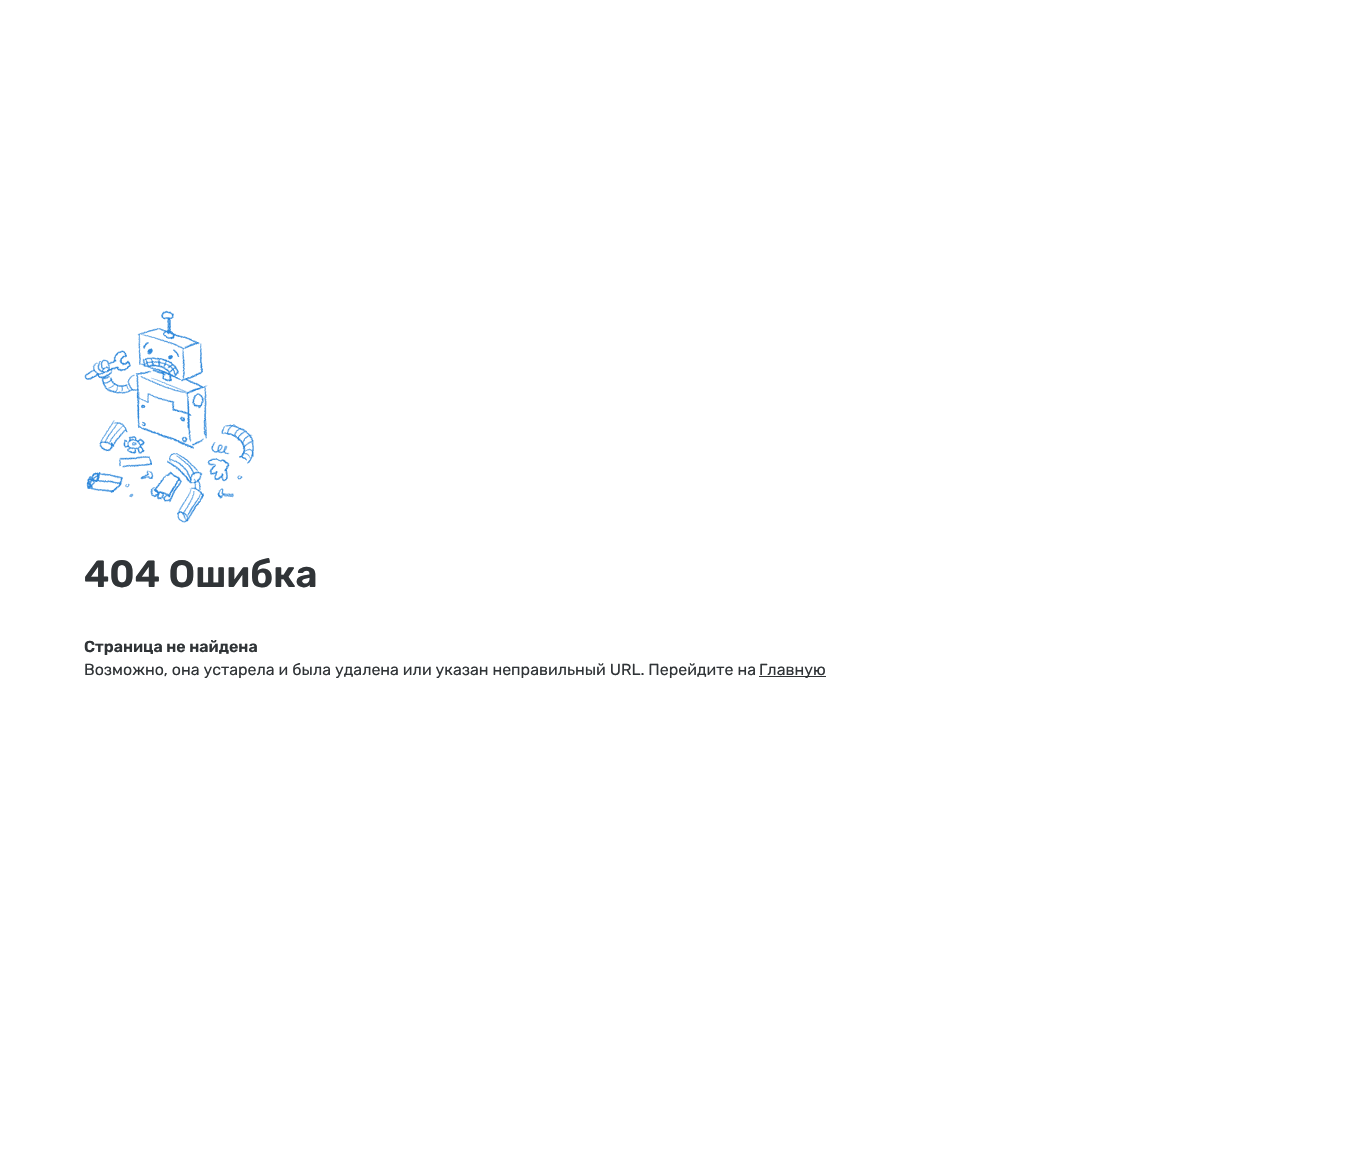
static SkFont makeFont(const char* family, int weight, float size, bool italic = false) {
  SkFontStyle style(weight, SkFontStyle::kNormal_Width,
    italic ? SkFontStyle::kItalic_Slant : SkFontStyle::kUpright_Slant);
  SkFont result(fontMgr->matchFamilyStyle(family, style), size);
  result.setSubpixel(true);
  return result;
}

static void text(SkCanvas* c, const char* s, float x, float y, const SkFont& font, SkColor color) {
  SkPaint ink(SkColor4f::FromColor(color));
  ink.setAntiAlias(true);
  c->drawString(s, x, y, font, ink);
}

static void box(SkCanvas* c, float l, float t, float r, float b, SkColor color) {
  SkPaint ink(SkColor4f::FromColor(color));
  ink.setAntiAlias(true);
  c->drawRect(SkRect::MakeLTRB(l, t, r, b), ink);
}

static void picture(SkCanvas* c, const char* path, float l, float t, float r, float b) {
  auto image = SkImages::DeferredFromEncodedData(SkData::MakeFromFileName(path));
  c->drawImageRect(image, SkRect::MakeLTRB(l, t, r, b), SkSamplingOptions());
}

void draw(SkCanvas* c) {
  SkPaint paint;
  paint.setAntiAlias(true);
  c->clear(0xffffffff);
  picture(c, "img_01.png", 84, 310, 254, 523);
  SkFont face1 = makeFont("Rubik", 600, 38);
  text(c, "404 Ошибка", 84, 587, face1, 0xff303437);
  SkFont face2 = makeFont("Rubik", 600, 16);
  text(c, "Страница не найдена", 84, 652, face2, 0xff303437);
  SkFont face3 = makeFont("Rubik", 400, 16);
  text(c, "Возможно, она устарела и была удалена или указан неправильный URL. Перейдите на", 84, 675, face3, 0xff303437);
  box(c, 759, 676, 826, 677, 0xff303437);
  text(c, "Главную", 759, 675, face3, 0xff303437);
}
